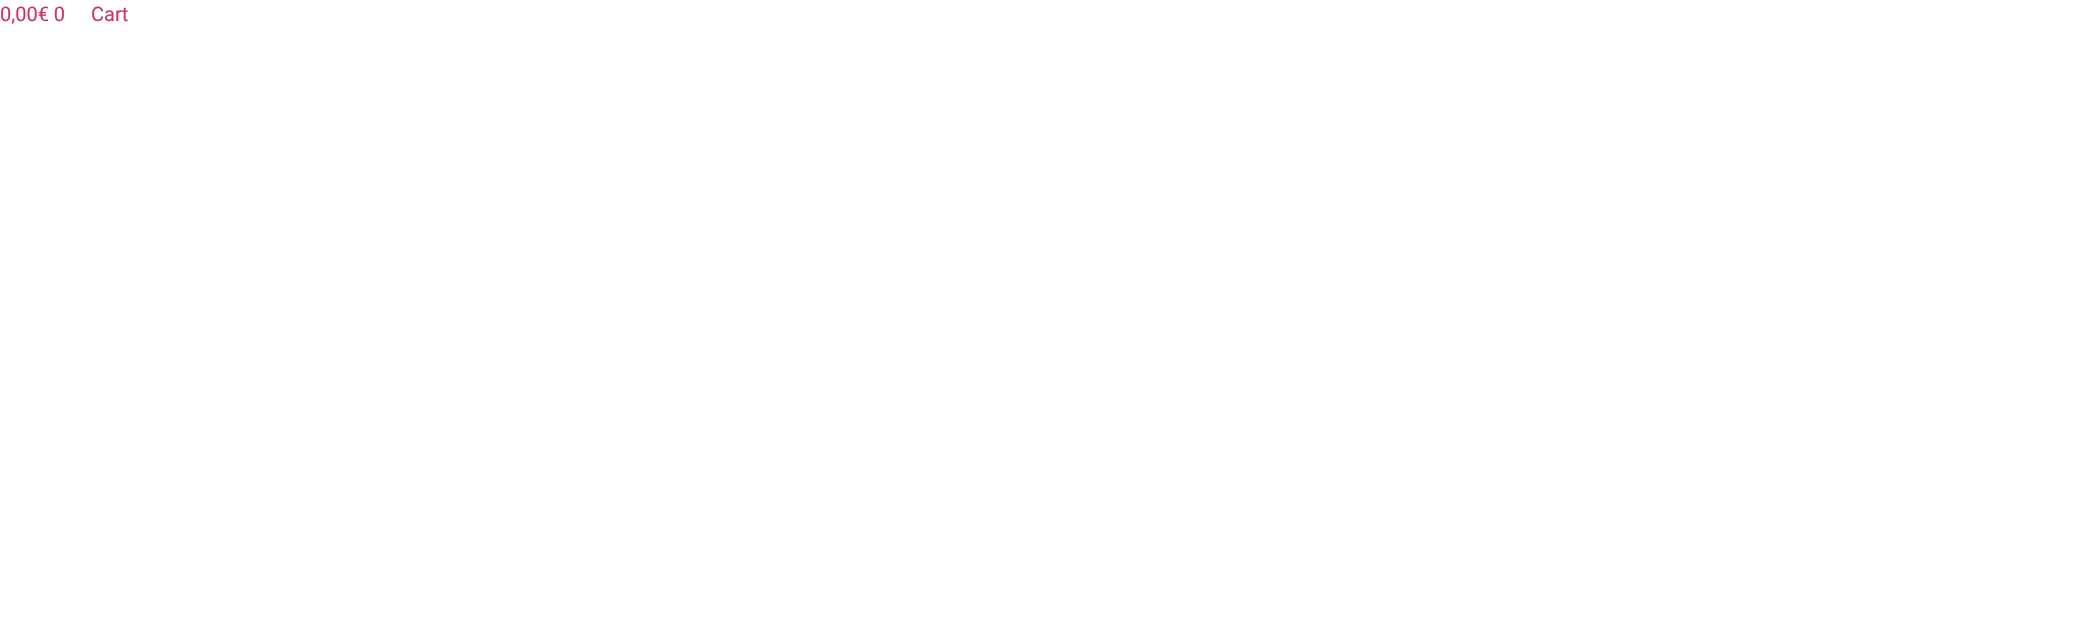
static SkFont makeFont(const char* family, int weight, float size, bool italic = false) {
  SkFontStyle style(weight, SkFontStyle::kNormal_Width,
    italic ? SkFontStyle::kItalic_Slant : SkFontStyle::kUpright_Slant);
  SkFont result(fontMgr->matchFamilyStyle(family, style), size);
  result.setSubpixel(true);
  return result;
}

static void text(SkCanvas* c, const char* s, float x, float y, const SkFont& font, SkColor color) {
  SkPaint ink(SkColor4f::FromColor(color));
  ink.setAntiAlias(true);
  c->drawString(s, x, y, font, ink);
}

void draw(SkCanvas* c) {
  SkPaint paint;
  paint.setAntiAlias(true);
  c->clear(0xffffffff);
  SkFont face1 = makeFont("Roboto", 400, 20);
  text(c, "0,00€ 0", 0, 21, face1, 0xffcc3366);
  text(c, "Cart", 91, 21, face1, 0xffcc3366);
}
